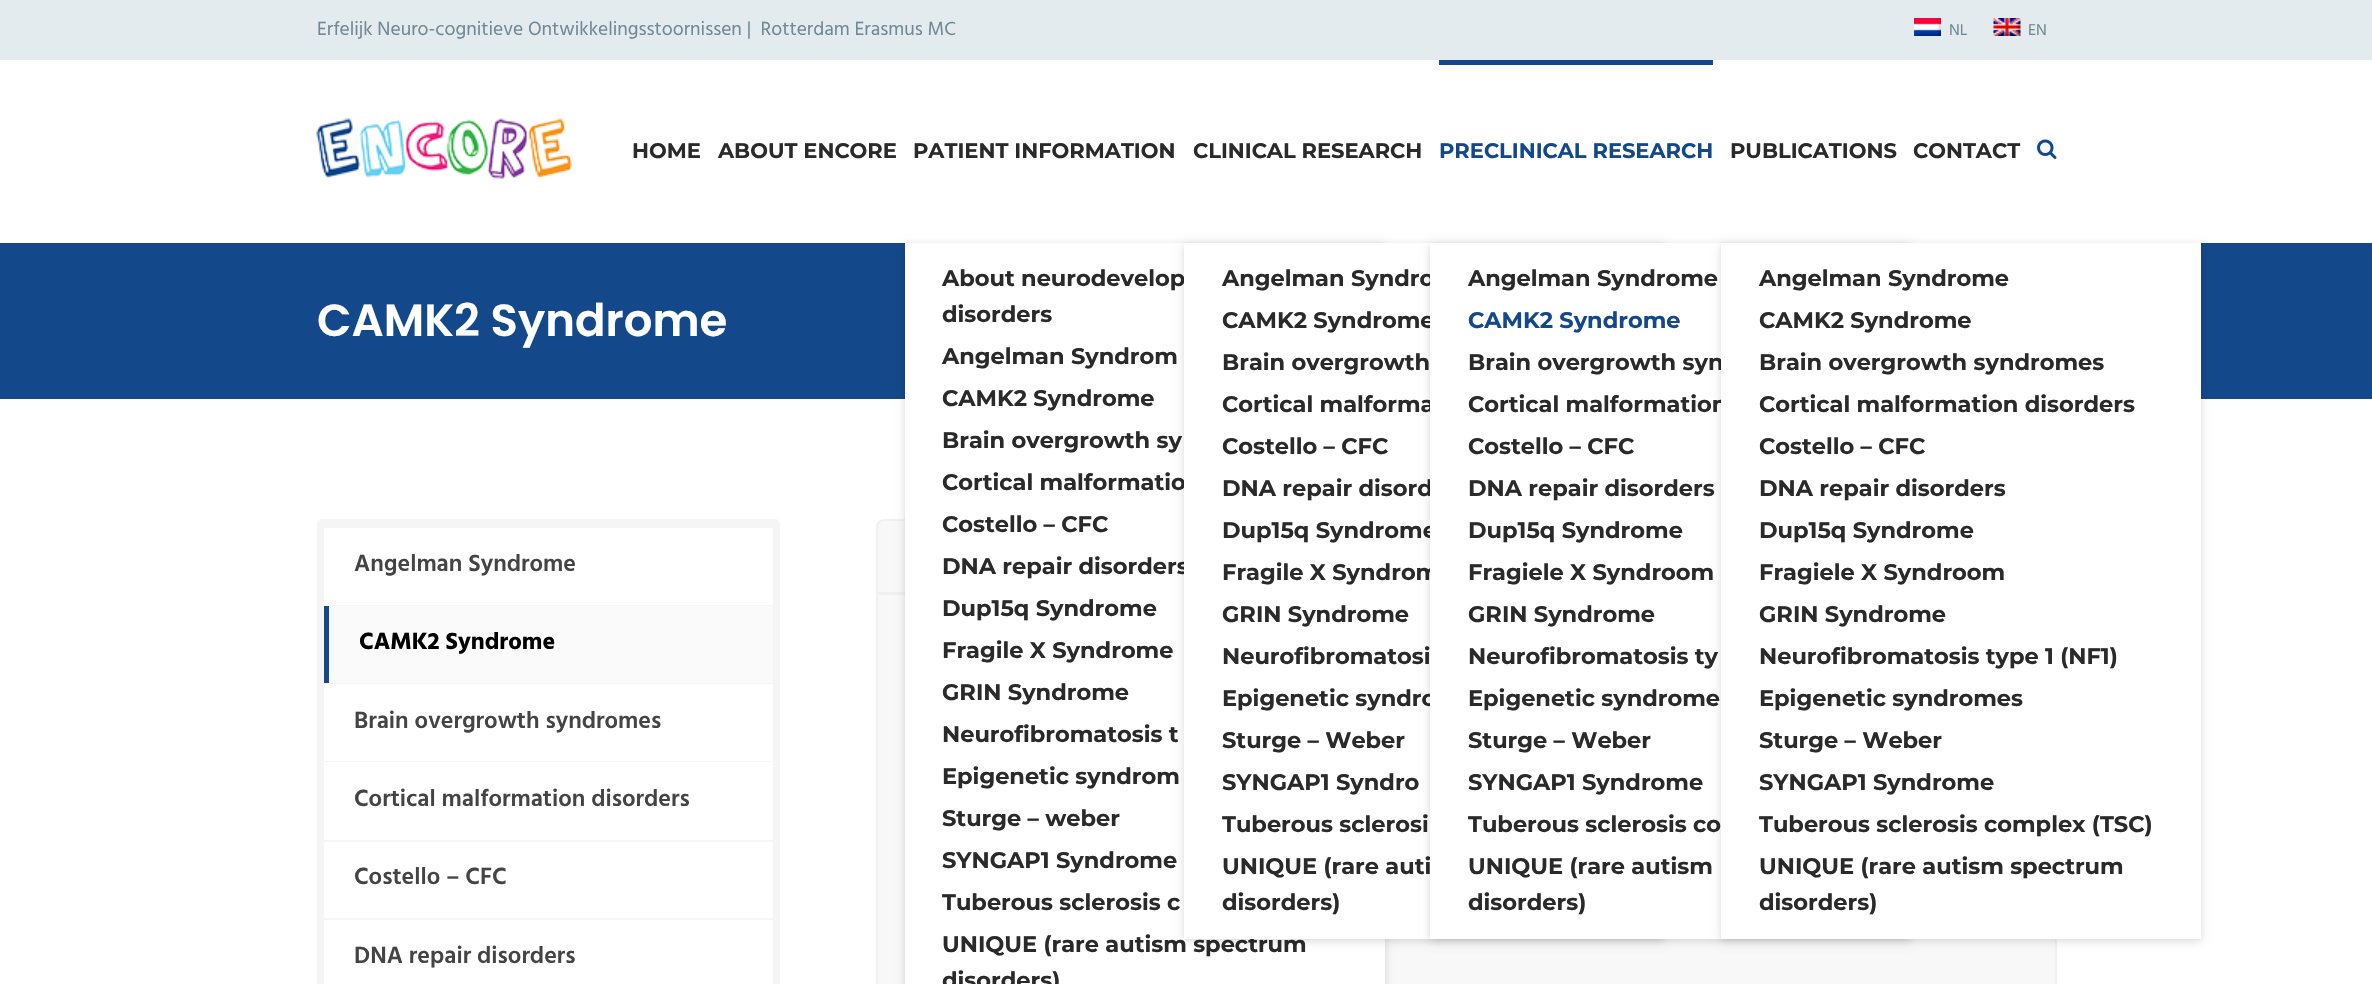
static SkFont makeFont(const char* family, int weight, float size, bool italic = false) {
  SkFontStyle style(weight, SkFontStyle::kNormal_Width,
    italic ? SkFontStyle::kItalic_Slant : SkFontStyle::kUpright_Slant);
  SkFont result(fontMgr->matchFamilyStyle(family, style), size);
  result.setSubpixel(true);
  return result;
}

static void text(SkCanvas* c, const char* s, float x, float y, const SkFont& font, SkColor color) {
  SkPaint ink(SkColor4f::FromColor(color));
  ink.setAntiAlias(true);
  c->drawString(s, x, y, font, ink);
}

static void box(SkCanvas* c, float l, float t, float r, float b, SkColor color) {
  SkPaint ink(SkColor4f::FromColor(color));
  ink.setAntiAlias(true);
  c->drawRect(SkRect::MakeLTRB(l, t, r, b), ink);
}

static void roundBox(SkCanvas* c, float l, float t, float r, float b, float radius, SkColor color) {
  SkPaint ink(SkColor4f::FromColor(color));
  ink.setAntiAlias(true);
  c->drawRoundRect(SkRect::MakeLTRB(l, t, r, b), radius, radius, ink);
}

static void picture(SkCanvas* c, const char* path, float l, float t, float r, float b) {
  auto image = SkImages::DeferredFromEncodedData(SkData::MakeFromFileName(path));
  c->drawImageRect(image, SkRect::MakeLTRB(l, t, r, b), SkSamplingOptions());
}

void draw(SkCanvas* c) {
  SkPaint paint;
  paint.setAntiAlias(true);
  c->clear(0xffffffff);
  box(c, 0, 0, 2372, 60, 0xffe4ebef);
  SkFont face1 = makeFont("Hind", 400, 19.5f);
  text(c, "Erfelijk Neuro-cognitieve Ontwikkelingsstoornissen |  Rotterdam Erasmus MC", 317, 35, face1, 0xff718895);
  picture(c, "img_01.png", 1914, 18, 1941, 36);
  SkFont face2 = makeFont("Hind", 400, 16);
  text(c, "NL", 1949, 35, face2, 0xff718895);
  picture(c, "img_02.png", 1993, 18, 2021, 36);
  text(c, "EN", 2028, 35, face2, 0xff718895);
  box(c, 0, 243, 2372, 399, 0xff13488a);
  SkFont face3 = makeFont("Poppins", 600, 45);
  text(c, "CAMK2 Syndrome", 317, 336, face3, 0xffffffff);
  picture(c, "img_03.png", 316, 118, 572, 179);
  picture(c, "img_04.png", 2037, 139, 2057, 159);
  SkFont face4 = makeFont("Montserrat", 700, 21);
  text(c, "HOME", 632, 158, face4, 0xff2a2a2a);
  text(c, "ABOUT ENCORE", 718, 158, face4, 0xff2a2a2a);
  text(c, "PATIENT INFORMATION", 913, 158, face4, 0xff2a2a2a);
  paint.setColor(0xfff8f8f8);
  c->drawPath(SkPathBuilder().moveTo(884, 520).lineTo(2049, 520).cubicTo(2053, 520, 2056, 523, 2056, 527).lineTo(2056, 593).lineTo(877, 593).lineTo(877, 527).cubicTo(877, 523, 880, 520, 884, 520).close().detach(), paint);
  paint.setStyle(SkPaint::kStroke_Style);
  paint.setStrokeWidth(2);
  paint.setColor(0xfff0f0f0);
  c->drawPath(SkPathBuilder().moveTo(884, 520).lineTo(2049, 520).cubicTo(2053, 520, 2056, 523, 2056, 527).lineTo(2056, 593).lineTo(877, 593).lineTo(877, 527).cubicTo(877, 523, 880, 520, 884, 520).close().detach(), paint);
  paint.setStyle(SkPaint::kFill_Style);
  paint.setColor(0xfff8f8f8);
  c->drawRect(SkRect::MakeLTRB(877, 594, 2056, 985), paint);
  paint.setStyle(SkPaint::kStroke_Style);
  paint.setColor(0xfff0f0f0);
  c->drawRect(SkRect::MakeLTRB(877, 594, 2056, 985), paint);
  paint.setStyle(SkPaint::kFill_Style);
  paint.setColor(0x26000000);
  paint.setMaskFilter(SkMaskFilter::MakeBlur(kNormal_SkBlurStyle, 4));
  c->drawRect(SkRect::MakeLTRB(905, 245, 1385, 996), paint);
  paint.setMaskFilter(nullptr);
  box(c, 905, 243, 1385, 984, 0xffffffff);
  SkFont face5 = makeFont("Montserrat", 700, 22.5f);
  text(c, "About neurodevelop", 942, 286, face5, 0xff2a2a2a);
  text(c, "disorders", 942, 322, face5, 0xff2a2a2a);
  text(c, "Angelman Syndrom", 942, 364, face5, 0xff2a2a2a);
  text(c, "CAMK2 Syndrome", 942, 406, face5, 0xff2a2a2a);
  text(c, "Brain overgrowth sy", 942, 448, face5, 0xff2a2a2a);
  text(c, "Cortical malformatio", 942, 490, face5, 0xff2a2a2a);
  text(c, "Costello – CFC", 942, 532, face5, 0xff2a2a2a);
  text(c, "DNA repair disorders", 942, 574, face5, 0xff2a2a2a);
  text(c, "Dup15q Syndrome", 942, 616, face5, 0xff2a2a2a);
  text(c, "Fragile X Syndrome", 942, 658, face5, 0xff2a2a2a);
  text(c, "GRIN Syndrome", 942, 700, face5, 0xff2a2a2a);
  text(c, "Neurofibromatosis t", 942, 742, face5, 0xff2a2a2a);
  text(c, "Epigenetic syndrom", 942, 784, face5, 0xff2a2a2a);
  text(c, "Sturge – weber", 942, 826, face5, 0xff2a2a2a);
  text(c, "SYNGAP1 Syndrome", 942, 868, face5, 0xff2a2a2a);
  text(c, "Tuberous sclerosis c", 942, 910, face5, 0xff2a2a2a);
  text(c, "UNIQUE (rare autism spectrum", 942, 952, face5, 0xff2a2a2a);
  text(c, "disorders)", 942, 988, face5, 0xff2a2a2a);
  text(c, "CLINICAL RESEARCH", 1193, 158, face4, 0xff2a2a2a);
  paint.setMaskFilter(SkMaskFilter::MakeBlur(kNormal_SkBlurStyle, 4));
  c->drawRect(SkRect::MakeLTRB(1184, 245, 1664, 941), paint);
  paint.setMaskFilter(nullptr);
  box(c, 1184, 243, 1430, 939, 0xffffffff);
  text(c, "Angelman Syndro", 1222, 286, face5, 0xff2a2a2a);
  text(c, "CAMK2 Syndrome", 1222, 328, face5, 0xff2a2a2a);
  text(c, "Brain overgrowth", 1222, 370, face5, 0xff2a2a2a);
  text(c, "Cortical malforma", 1222, 412, face5, 0xff2a2a2a);
  text(c, "Costello – CFC", 1222, 454, face5, 0xff2a2a2a);
  text(c, "DNA repair disord", 1222, 496, face5, 0xff2a2a2a);
  text(c, "Dup15q Syndrome", 1222, 538, face5, 0xff2a2a2a);
  text(c, "Fragile X Syndrom", 1222, 580, face5, 0xff2a2a2a);
  text(c, "GRIN Syndrome", 1222, 622, face5, 0xff2a2a2a);
  text(c, "Neurofibromatosi", 1222, 664, face5, 0xff2a2a2a);
  text(c, "Epigenetic syndro", 1222, 706, face5, 0xff2a2a2a);
  text(c, "Sturge – Weber", 1222, 748, face5, 0xff2a2a2a);
  text(c, "SYNGAP1 Syndro", 1222, 790, face5, 0xff2a2a2a);
  text(c, "Tuberous sclerosi", 1222, 832, face5, 0xff2a2a2a);
  text(c, "UNIQUE (rare auti", 1222, 874, face5, 0xff2a2a2a);
  text(c, "disorders)", 1222, 910, face5, 0xff2a2a2a);
  box(c, 1439, 60, 1713, 65, 0xff13488a);
  text(c, "PRECLINICAL RESEARCH", 1439, 158, face4, 0xff13488a);
  paint.setMaskFilter(SkMaskFilter::MakeBlur(kNormal_SkBlurStyle, 4));
  c->drawRect(SkRect::MakeLTRB(1430, 245, 1910, 941), paint);
  paint.setMaskFilter(nullptr);
  box(c, 1430, 243, 1721, 939, 0xffffffff);
  text(c, "Angelman Syndrome", 1468, 286, face5, 0xff2a2a2a);
  text(c, "CAMK2 Syndrome", 1468, 328, face5, 0xff13488a);
  text(c, "Brain overgrowth syn", 1468, 370, face5, 0xff2a2a2a);
  text(c, "Cortical malformation", 1468, 412, face5, 0xff2a2a2a);
  text(c, "Costello – CFC", 1468, 454, face5, 0xff2a2a2a);
  text(c, "DNA repair disorders", 1468, 496, face5, 0xff2a2a2a);
  text(c, "Dup15q Syndrome", 1468, 538, face5, 0xff2a2a2a);
  text(c, "Fragiele X Syndroom", 1468, 580, face5, 0xff2a2a2a);
  text(c, "GRIN Syndrome", 1468, 622, face5, 0xff2a2a2a);
  text(c, "Neurofibromatosis ty", 1468, 664, face5, 0xff2a2a2a);
  text(c, "Epigenetic syndrome", 1468, 706, face5, 0xff2a2a2a);
  text(c, "Sturge – Weber", 1468, 748, face5, 0xff2a2a2a);
  text(c, "SYNGAP1 Syndrome", 1468, 790, face5, 0xff2a2a2a);
  text(c, "Tuberous sclerosis co", 1468, 832, face5, 0xff2a2a2a);
  text(c, "UNIQUE (rare autism", 1468, 874, face5, 0xff2a2a2a);
  text(c, "disorders)", 1468, 910, face5, 0xff2a2a2a);
  text(c, "PUBLICATIONS", 1730, 158, face4, 0xff2a2a2a);
  paint.setMaskFilter(SkMaskFilter::MakeBlur(kNormal_SkBlurStyle, 4));
  c->drawRect(SkRect::MakeLTRB(1721, 245, 2201, 941), paint);
  paint.setMaskFilter(nullptr);
  box(c, 1721, 243, 2201, 939, 0xffffffff);
  text(c, "Angelman Syndrome", 1759, 286, face5, 0xff2a2a2a);
  text(c, "CAMK2 Syndrome", 1759, 328, face5, 0xff2a2a2a);
  text(c, "Brain overgrowth syndromes", 1759, 370, face5, 0xff2a2a2a);
  text(c, "Cortical malformation disorders", 1759, 412, face5, 0xff2a2a2a);
  text(c, "Costello – CFC", 1759, 454, face5, 0xff2a2a2a);
  text(c, "DNA repair disorders", 1759, 496, face5, 0xff2a2a2a);
  text(c, "Dup15q Syndrome", 1759, 538, face5, 0xff2a2a2a);
  text(c, "Fragiele X Syndroom", 1759, 580, face5, 0xff2a2a2a);
  text(c, "GRIN Syndrome", 1759, 622, face5, 0xff2a2a2a);
  text(c, "Neurofibromatosis type 1 (NF1)", 1759, 664, face5, 0xff2a2a2a);
  text(c, "Epigenetic syndromes", 1759, 706, face5, 0xff2a2a2a);
  text(c, "Sturge – Weber", 1759, 748, face5, 0xff2a2a2a);
  text(c, "SYNGAP1 Syndrome", 1759, 790, face5, 0xff2a2a2a);
  text(c, "Tuberous sclerosis complex (TSC)", 1759, 832, face5, 0xff2a2a2a);
  text(c, "UNIQUE (rare autism spectrum", 1759, 874, face5, 0xff2a2a2a);
  text(c, "disorders)", 1759, 910, face5, 0xff2a2a2a);
  text(c, "CONTACT", 1913, 158, face4, 0xff2a2a2a);
  roundBox(c, 317, 519, 780, 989, 5, 0xfff5f5f5);
  box(c, 324, 528, 773, 605, 0xffffffff);
  SkFont face6 = makeFont("Hind", 600, 24);
  text(c, "Angelman Syndrome", 354, 571, face6, 0xff444444);
  box(c, 329, 606, 773, 683, 0xfffafafa);
  box(c, 324, 606, 329, 683, 0xff13488a);
  SkFont face7 = makeFont("Hind", 700, 24);
  text(c, "CAMK2 Syndrome", 359, 649, face7, 0xff000000);
  box(c, 324, 684, 773, 761, 0xffffffff);
  text(c, "Brain overgrowth syndromes", 354, 728, face6, 0xff444444);
  box(c, 324, 762, 773, 840, 0xffffffff);
  text(c, "Cortical malformation disorders", 354, 806, face6, 0xff444444);
  box(c, 324, 842, 773, 918, 0xffffffff);
  text(c, "Costello – CFC", 354, 884, face6, 0xff444444);
  box(c, 324, 920, 773, 984, 0xffffffff);
  text(c, "DNA repair disorders", 354, 963, face6, 0xff444444);
}
